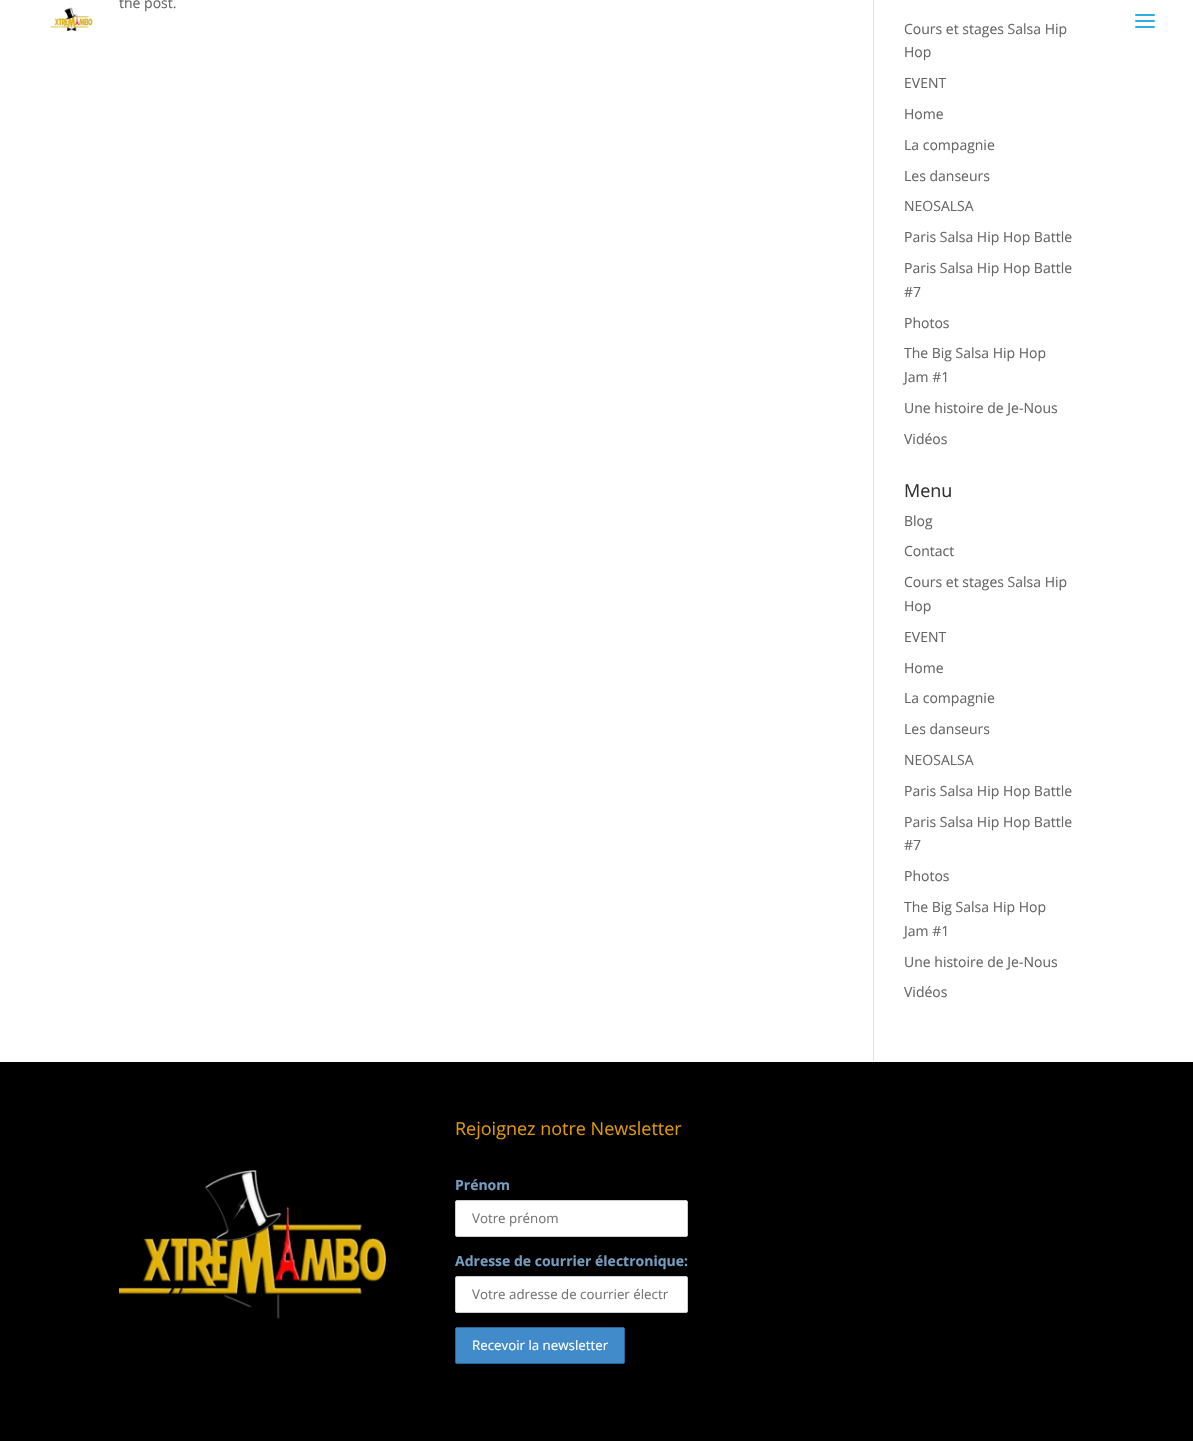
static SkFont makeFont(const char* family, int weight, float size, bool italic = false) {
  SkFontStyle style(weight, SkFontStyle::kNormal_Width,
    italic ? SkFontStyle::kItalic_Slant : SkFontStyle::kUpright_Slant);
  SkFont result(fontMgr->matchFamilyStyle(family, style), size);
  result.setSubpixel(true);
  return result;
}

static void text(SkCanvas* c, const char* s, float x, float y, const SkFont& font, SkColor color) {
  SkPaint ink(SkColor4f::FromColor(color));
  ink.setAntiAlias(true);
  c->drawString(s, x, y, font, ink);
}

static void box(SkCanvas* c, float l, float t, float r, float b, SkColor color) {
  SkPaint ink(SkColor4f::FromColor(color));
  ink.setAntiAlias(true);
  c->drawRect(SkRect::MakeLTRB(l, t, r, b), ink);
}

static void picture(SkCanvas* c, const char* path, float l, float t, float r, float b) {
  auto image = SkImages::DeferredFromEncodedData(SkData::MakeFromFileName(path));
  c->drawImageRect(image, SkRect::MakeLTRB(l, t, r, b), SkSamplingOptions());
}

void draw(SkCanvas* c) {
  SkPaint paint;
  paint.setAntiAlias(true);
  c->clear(0xffffffff);
  SkFont face1 = makeFont("Open Sans", 400, 14);
  text(c, "the post.", 119, 8, face1, 0xff666666);
  text(c, "Cours et stages Salsa Hip", 904, 34, face1, 0xff666666);
  text(c, "Hop", 904, 57, face1, 0xff666666);
  text(c, "EVENT", 904, 88, face1, 0xff666666);
  text(c, "Home", 904, 119, face1, 0xff666666);
  text(c, "La compagnie", 904, 150, face1, 0xff666666);
  text(c, "Les danseurs", 904, 181, face1, 0xff666666);
  text(c, "NEOSALSA", 904, 211, face1, 0xff666666);
  text(c, "Paris Salsa Hip Hop Battle", 904, 242, face1, 0xff666666);
  text(c, "Paris Salsa Hip Hop Battle", 904, 273, face1, 0xff666666);
  text(c, "#7", 904, 297, face1, 0xff666666);
  text(c, "Photos", 904, 328, face1, 0xff666666);
  text(c, "The Big Salsa Hip Hop", 904, 358, face1, 0xff666666);
  text(c, "Jam #1", 904, 382, face1, 0xff666666);
  text(c, "Une histoire de Je-Nous", 904, 413, face1, 0xff666666);
  text(c, "Vidéos", 904, 444, face1, 0xff666666);
  SkFont face2 = makeFont("Open Sans", 400, 18);
  text(c, "Menu", 904, 497, face2, 0xff333333);
  text(c, "Blog", 904, 526, face1, 0xff666666);
  text(c, "Contact", 904, 556, face1, 0xff666666);
  text(c, "Cours et stages Salsa Hip", 904, 587, face1, 0xff666666);
  text(c, "Hop", 904, 611, face1, 0xff666666);
  text(c, "EVENT", 904, 642, face1, 0xff666666);
  text(c, "Home", 904, 673, face1, 0xff666666);
  text(c, "La compagnie", 904, 703, face1, 0xff666666);
  text(c, "Les danseurs", 904, 734, face1, 0xff666666);
  text(c, "NEOSALSA", 904, 765, face1, 0xff666666);
  text(c, "Paris Salsa Hip Hop Battle", 904, 796, face1, 0xff666666);
  text(c, "Paris Salsa Hip Hop Battle", 904, 827, face1, 0xff666666);
  text(c, "#7", 904, 850, face1, 0xff666666);
  text(c, "Photos", 904, 881, face1, 0xff666666);
  text(c, "The Big Salsa Hip Hop", 904, 912, face1, 0xff666666);
  text(c, "Jam #1", 904, 936, face1, 0xff666666);
  text(c, "Une histoire de Je-Nous", 904, 967, face1, 0xff666666);
  text(c, "Vidéos", 904, 997, face1, 0xff666666);
  box(c, 873, 0, 874, 1062, 0xffe2e2e2);
  box(c, 0, 1062, 1193, 1441, 0xff000000);
  picture(c, "img_01.png", 119, 1170, 386, 1319);
  text(c, "Rejoignez notre Newsletter", 455, 1135, face2, 0xffe09900);
  SkFont face3 = makeFont("Open Sans", 700, 14);
  text(c, "Prénom", 455, 1190, face3, 0xff749ec1);
  paint.setColor(0xffffffff);
  c->drawRoundRect(SkRect::MakeLTRB(455.5f, 1200.5f, 687.5f, 1236.5f), 1.5f, 1.5f, paint);
  paint.setStyle(SkPaint::kStroke_Style);
  paint.setStrokeWidth(1);
  paint.setColor(0xffcccccc);
  c->drawRoundRect(SkRect::MakeLTRB(455.5f, 1200.5f, 687.5f, 1236.5f), 1.5f, 1.5f, paint);
  SkFont face4 = makeFont("Open Sans", 400, 13.3f);
  text(c, "Votre prénom", 472, 1223, face4, 0xff757575);
  text(c, "Adresse de courrier électronique:", 455, 1266, face3, 0xff749ec1);
  paint.setStyle(SkPaint::kFill_Style);
  paint.setColor(0xffffffff);
  c->drawRoundRect(SkRect::MakeLTRB(455.5f, 1276.5f, 687.5f, 1312.5f), 1.5f, 1.5f, paint);
  paint.setStyle(SkPaint::kStroke_Style);
  paint.setColor(0xffcccccc);
  c->drawRoundRect(SkRect::MakeLTRB(455.5f, 1276.5f, 687.5f, 1312.5f), 1.5f, 1.5f, paint);
  text(c, "Votre adresse de courrier électr", 472, 1299, face4, 0xff757575);
  paint.setStyle(SkPaint::kFill_Style);
  paint.setColor(0xff428bca);
  c->drawRoundRect(SkRect::MakeLTRB(455.5f, 1327.5f, 624.5f, 1363.5f), 1.5f, 1.5f, paint);
  paint.setStyle(SkPaint::kStroke_Style);
  paint.setColor(0xff2a6496);
  c->drawRoundRect(SkRect::MakeLTRB(455.5f, 1327.5f, 624.5f, 1363.5f), 1.5f, 1.5f, paint);
  text(c, "Recevoir la newsletter", 472, 1350, face4, 0xffffffff);
  picture(c, "img_02.png", 50, 7, 93, 31);
  picture(c, "img_03.png", 1135, 14, 1155, 28);
}
